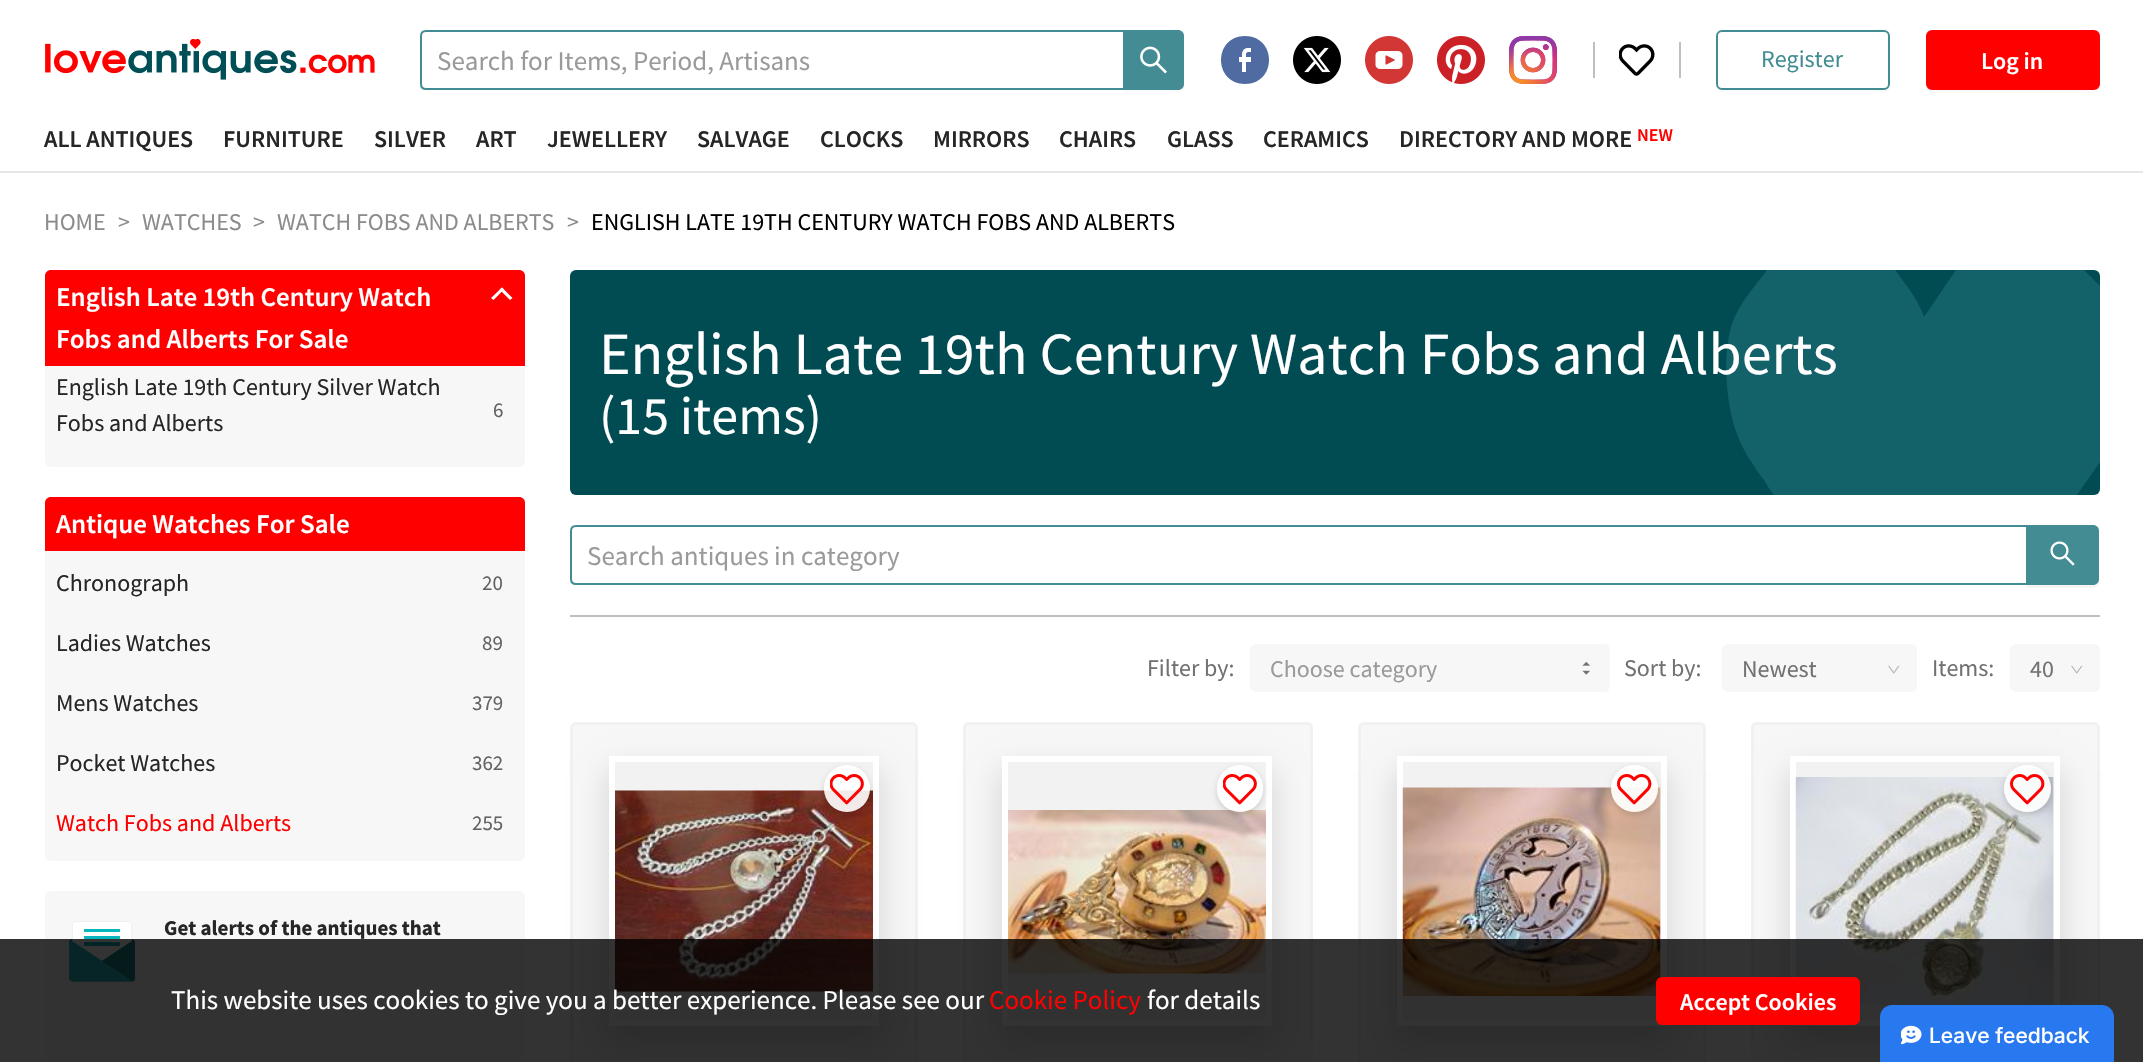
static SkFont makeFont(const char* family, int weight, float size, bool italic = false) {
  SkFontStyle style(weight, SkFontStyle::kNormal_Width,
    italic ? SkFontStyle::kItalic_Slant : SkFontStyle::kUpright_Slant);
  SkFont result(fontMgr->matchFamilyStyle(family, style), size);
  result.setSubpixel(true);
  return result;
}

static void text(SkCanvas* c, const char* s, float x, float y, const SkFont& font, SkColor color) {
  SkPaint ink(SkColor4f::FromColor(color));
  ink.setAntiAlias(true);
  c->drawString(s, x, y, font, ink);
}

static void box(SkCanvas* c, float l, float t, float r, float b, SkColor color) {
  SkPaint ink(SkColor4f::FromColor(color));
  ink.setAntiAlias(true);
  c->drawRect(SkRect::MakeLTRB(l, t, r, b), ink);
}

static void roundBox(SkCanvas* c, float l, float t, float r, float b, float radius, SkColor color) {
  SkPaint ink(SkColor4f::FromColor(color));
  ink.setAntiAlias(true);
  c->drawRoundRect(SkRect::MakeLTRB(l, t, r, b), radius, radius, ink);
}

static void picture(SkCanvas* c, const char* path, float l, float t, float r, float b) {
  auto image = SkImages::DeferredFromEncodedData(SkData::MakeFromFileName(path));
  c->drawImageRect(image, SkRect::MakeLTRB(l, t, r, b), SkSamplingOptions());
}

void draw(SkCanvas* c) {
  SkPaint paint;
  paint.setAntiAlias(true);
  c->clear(0xffffffff);
  box(c, 0, 171, 2143, 173, 0xffe6e6e6);
  picture(c, "img_01.png", 45, 38, 375, 80);
  paint.setStyle(SkPaint::kStroke_Style);
  paint.setStrokeWidth(2);
  paint.setColor(0xff438c93);
  c->drawPath(SkPathBuilder().moveTo(426, 31).lineTo(1124, 31).lineTo(1124, 89).lineTo(426, 89).cubicTo(423, 89, 421, 87, 421, 84).lineTo(421, 36).cubicTo(421, 33, 423, 31, 426, 31).close().detach(), paint);
  SkFont face1 = makeFont("Source Sans Pro", 400, 27);
  text(c, "Search for Items, Period, Artisans", 437, 70, face1, 0xff9a9a9a);
  paint.setStyle(SkPaint::kFill_Style);
  paint.setColor(0xfffbfbfb);
  c->drawPath(SkPathBuilder().moveTo(1124, 90).lineTo(1124, 93).lineTo(1178, 93).cubicTo(1181, 93, 1184, 90, 1184, 87).lineTo(1184, 39).lineTo(1184, 37).lineTo(1184, 84).cubicTo(1184, 87, 1181, 90, 1178, 90).close().detach(), paint);
  paint.setColor(0xff438c93);
  c->drawPath(SkPathBuilder().moveTo(1124, 30).lineTo(1178, 30).cubicTo(1181.5f, 30, 1184, 32.5f, 1184, 36).lineTo(1184, 84).cubicTo(1184, 87.5f, 1181.5f, 90, 1178, 90).lineTo(1124, 90).close().detach(), paint);
  picture(c, "img_02.png", 1140, 46, 1167, 74);
  paint.setColor(0xff4f6ba2);
  c->drawPath(SkPathBuilder(SkPathFillType::kEvenOdd).moveTo(1251, 52).cubicTo(1246, 52, 1246, 52, 1246, 57).lineTo(1251, 57).lineTo(1251, 62).lineTo(1246, 62).lineTo(1246, 72).lineTo(1242, 72).lineTo(1242, 62).lineTo(1239, 62).lineTo(1239, 57).lineTo(1242, 57).cubicTo(1242, 53, 1242, 49, 1247, 48).lineTo(1251, 48).close().moveTo(1245, 36).cubicTo(1213, 36, 1213, 84, 1245, 84).cubicTo(1277, 84, 1277, 36, 1245, 36).close().detach(), paint);
  picture(c, "img_03.png", 1293, 36, 1341, 84);
  picture(c, "img_04.png", 1365, 36, 1413, 84);
  picture(c, "img_05.png", 1437, 36, 1485, 84);
  picture(c, "img_06.png", 1509, 36, 1557, 84);
  box(c, 1679, 42, 1681, 78, 0xffbfbfbf);
  box(c, 1593, 42, 1595, 78, 0xffbfbfbf);
  picture(c, "img_07.png", 1619, 44, 1655, 76);
  paint.setColor(0xfffbfbfb);
  c->drawPath(SkPathBuilder().moveTo(1716, 84).lineTo(1716, 87).cubicTo(1716, 90, 1719, 93, 1722, 93).lineTo(1884, 93).cubicTo(1887, 93, 1890, 90, 1890, 87).lineTo(1890, 84).cubicTo(1890, 87, 1887, 90, 1884, 90).lineTo(1722, 90).cubicTo(1719, 90, 1716, 87, 1716, 84).close().detach(), paint);
  paint.setStyle(SkPaint::kStroke_Style);
  paint.setColor(0xff438c93);
  c->drawRoundRect(SkRect::MakeLTRB(1717, 31, 1889, 89), 5, 5, paint);
  SkFont face2 = makeFont("Source Sans Pro", 400, 24);
  text(c, "Register", 1761, 67, face2, 0xff438c93);
  paint.setStyle(SkPaint::kFill_Style);
  paint.setColor(0xfffbfbfb);
  c->drawPath(SkPathBuilder().moveTo(1926, 84).lineTo(1926, 87).cubicTo(1926, 90, 1929, 93, 1932, 93).lineTo(2094, 93).cubicTo(2097, 93, 2100, 90, 2100, 87).lineTo(2100, 84).cubicTo(2100, 87, 2097, 90, 2094, 90).lineTo(1932, 90).cubicTo(1929, 90, 1926, 87, 1926, 84).close().detach(), paint);
  paint.setColor(0xffff0000);
  c->drawRoundRect(SkRect::MakeLTRB(1927, 31, 2099, 89), 5, 5, paint);
  paint.setStyle(SkPaint::kStroke_Style);
  c->drawRoundRect(SkRect::MakeLTRB(1927, 31, 2099, 89), 5, 5, paint);
  SkFont face3 = makeFont("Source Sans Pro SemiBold", 600, 24);
  text(c, "Log in", 1981, 69, face3, 0xffffffff);
  text(c, "ALL ANTIQUES", 44, 147, face3, 0xff262626);
  text(c, "FURNITURE", 223, 147, face3, 0xff262626);
  text(c, "SILVER", 374, 147, face3, 0xff262626);
  text(c, "ART", 476, 147, face3, 0xff262626);
  text(c, "JEWELLERY", 547, 147, face3, 0xff262626);
  text(c, "SALVAGE", 697, 147, face3, 0xff262626);
  text(c, "CLOCKS", 820, 147, face3, 0xff262626);
  text(c, "MIRRORS", 933, 147, face3, 0xff262626);
  text(c, "CHAIRS", 1059, 147, face3, 0xff262626);
  text(c, "GLASS", 1167, 147, face3, 0xff262626);
  text(c, "CERAMICS", 1263, 147, face3, 0xff262626);
  text(c, "DIRECTORY AND MORE", 1399, 147, face3, 0xff262626);
  SkFont face4 = makeFont("Source Sans Pro SemiBold", 600, 18);
  text(c, "NEW", 1637, 141, face4, 0xffff0000);
  text(c, "HOME", 44, 230, face2, 0xff8c8c8c);
  text(c, ">", 118, 230, face2, 0xff8c8c8c);
  text(c, "WATCHES", 142, 230, face2, 0xff8c8c8c);
  text(c, ">", 253, 230, face2, 0xff8c8c8c);
  text(c, "WATCH FOBS AND ALBERTS", 277, 230, face2, 0xff8c8c8c);
  text(c, ">", 567, 230, face2, 0xff8c8c8c);
  text(c, "ENGLISH LATE 19TH CENTURY WATCH FOBS AND ALBERTS", 591, 230, face2, 0xff000000);
  roundBox(c, 45, 270, 525, 467, 6, 0xfff7f7f7);
  paint.setStyle(SkPaint::kFill_Style);
  c->drawPath(SkPathBuilder().moveTo(51, 270).lineTo(519, 270).cubicTo(522.5f, 270, 525, 272.5f, 525, 276).lineTo(525, 366).lineTo(45, 366).lineTo(45, 276).cubicTo(45, 272.5f, 47.5f, 270, 51, 270).close().detach(), paint);
  SkFont face5 = makeFont("Source Sans Pro SemiBold", 600, 27);
  text(c, "English Late 19th Century Watch", 56, 306, face5, 0xffffffff);
  text(c, "Fobs and Alberts For Sale", 56, 348, face5, 0xffffffff);
  paint.setColor(0xffffffff);
  c->drawPath(SkPathBuilder().moveTo(493.5f, 300).lineTo(491, 298).lineTo(502, 287.5f).lineTo(504, 289.5f).close().detach(), paint);
  c->drawPath(SkPathBuilder().moveTo(510, 300).lineTo(499.5f, 289.5f).lineTo(502, 287.5f).lineTo(512.5f, 298).close().detach(), paint);
  text(c, "English Late 19th Century Silver Watch", 56, 395, face2, 0xff262626);
  text(c, "Fobs and Alberts", 56, 431, face2, 0xff262626);
  SkFont face6 = makeFont("Source Sans Pro", 400, 21);
  text(c, "6", 493, 417, face6, 0xff636363);
  roundBox(c, 45, 497, 525, 861, 6, 0xfff7f7f7);
  paint.setColor(0xffff0000);
  c->drawPath(SkPathBuilder().moveTo(51, 497).lineTo(519, 497).cubicTo(522.5f, 497, 525, 499.5f, 525, 503).lineTo(525, 551).lineTo(45, 551).lineTo(45, 503).cubicTo(45, 499.5f, 47.5f, 497, 51, 497).close().detach(), paint);
  text(c, "Antique Watches For Sale", 56, 533, face5, 0xffffffff);
  text(c, "Chronograph", 56, 591, face2, 0xff262626);
  text(c, "20", 482, 590, face6, 0xff636363);
  text(c, "Ladies Watches", 56, 651, face2, 0xff262626);
  text(c, "89", 482, 650, face6, 0xff636363);
  text(c, "Mens Watches", 56, 711, face2, 0xff262626);
  text(c, "379", 472, 710, face6, 0xff636363);
  text(c, "Pocket Watches", 56, 771, face2, 0xff262626);
  text(c, "362", 472, 770, face6, 0xff636363);
  text(c, "Watch Fobs and Alberts", 56, 831, face2, 0xffff0000);
  text(c, "255", 472, 830, face6, 0xff636363);
  roundBox(c, 45, 891, 525, 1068, 6, 0xfff7f7f7);
  picture(c, "img_08.png", 69, 921, 135, 982);
  SkFont face7 = makeFont("Source Sans Pro", 700, 21);
  text(c, "Get alerts of the antiques that", 164, 935, face7, 0xff262626);
  roundBox(c, 570, 270, 2100, 495, 6, 0xff004c52);
  paint.setColor(0xff136169);
  c->drawPath(SkPathBuilder().moveTo(2100, 286).lineTo(2100, 462).lineTo(2077, 495).lineTo(1774, 495).cubicTo(1770, 490, 1767, 485, 1764, 480).cubicTo(1753, 465, 1743, 451, 1737, 434).cubicTo(1726, 405, 1722, 354, 1732, 324).cubicTo(1739, 303, 1754, 288, 1767, 270).lineTo(1895, 270).cubicTo(1906, 285, 1918, 299, 1924, 317).lineTo(1956, 270).lineTo(2084, 270).close().detach(), paint);
  SkFont face8 = makeFont("Source Sans Pro", 400, 60);
  text(c, "English Late 19th Century Watch Fobs and Alberts", 599, 374, face8, 0xffffffff);
  SkFont face9 = makeFont("Source Sans Pro", 400, 54);
  text(c, "(15 items)", 599, 434, face9, 0xffffffff);
  paint.setStyle(SkPaint::kStroke_Style);
  paint.setColor(0xff438c93);
  c->drawPath(SkPathBuilder().moveTo(576, 526).lineTo(2027, 526).lineTo(2027, 584).lineTo(576, 584).cubicTo(573, 584, 571, 582, 571, 579).lineTo(571, 531).cubicTo(571, 528, 573, 526, 576, 526).close().detach(), paint);
  text(c, "Search antiques in category", 587, 565, face1, 0xff9a9a9a);
  paint.setStyle(SkPaint::kFill_Style);
  paint.setColor(0x0a000000);
  c->drawPath(SkPathBuilder().moveTo(2027, 585).lineTo(2027, 588).lineTo(2093, 588).cubicTo(2096, 588, 2099, 585, 2099, 582).lineTo(2099, 534).lineTo(2098, 532).lineTo(2098, 579).cubicTo(2098, 582, 2096, 585, 2092, 585).close().detach(), paint);
  paint.setColor(0xff438c93);
  c->drawPath(SkPathBuilder().moveTo(2027, 525).lineTo(2093, 525).cubicTo(2096.5f, 525, 2099, 527.5f, 2099, 531).lineTo(2099, 579).cubicTo(2099, 582.5f, 2096.5f, 585, 2093, 585).lineTo(2027, 585).close().detach(), paint);
  picture(c, "img_09.png", 2050, 541, 2075, 566);
  box(c, 570, 615, 2100, 617, 0xffbfbfbf);
  text(c, "Filter by:", 1147, 676, face2, 0xff717171);
  roundBox(c, 1250, 644, 1610, 692, 6, 0xfff7f7f7);
  text(c, "Choose category", 1270, 677, face2, 0xff9a9a9a);
  picture(c, "img_10.png", 1582, 662, 1590, 675);
  text(c, "Sort by:", 1624, 676, face2, 0xff717171);
  roundBox(c, 1722, 644, 1917, 692, 6, 0xfff7f7f7);
  text(c, "Newest", 1742, 677, face2, 0xff717171);
  picture(c, "img_11.png", 1888, 665, 1900, 674);
  text(c, "Items:", 1932, 676, face2, 0xff717171);
  roundBox(c, 2010, 644, 2100, 692, 6, 0xfff7f7f7);
  text(c, "40", 2030, 677, face2, 0xff717171);
  picture(c, "img_11.png", 2071, 665, 2083, 674);
  paint.setColor(0xfff7f7f7);
  c->drawRoundRect(SkRect::MakeLTRB(571.5f, 723.5f, 916.5f, 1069.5f), 4.5f, 4.5f, paint);
  paint.setStyle(SkPaint::kStroke_Style);
  paint.setStrokeWidth(3);
  paint.setColor(0xfff1f1f1);
  c->drawRoundRect(SkRect::MakeLTRB(571.5f, 723.5f, 916.5f, 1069.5f), 4.5f, 4.5f, paint);
  paint.setStyle(SkPaint::kFill_Style);
  paint.setColor(0x26000000);
  paint.setMaskFilter(SkMaskFilter::MakeBlur(kNormal_SkBlurStyle, 15));
  c->drawRect(SkRect::MakeLTRB(609, 771, 879, 1041), paint);
  paint.setMaskFilter(nullptr);
  paint.setStyle(SkPaint::kStroke_Style);
  paint.setStrokeWidth(6);
  paint.setColor(0xffffffff);
  c->drawRect(SkRect::MakeLTRB(612, 759, 876, 1023), paint);
  box(c, 615, 762, 873, 1020, 0xfff2f2f2);
  picture(c, "img_12.png", 615, 790, 873, 992);
  c->save();
  c->clipPath(SkPathBuilder(SkPathFillType::kEvenOdd).moveTo(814, 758).lineTo(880, 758).lineTo(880, 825).lineTo(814, 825).close().moveTo(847, 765).cubicTo(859.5f, 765, 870, 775.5f, 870, 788).lineTo(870, 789).cubicTo(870, 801.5f, 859.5f, 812, 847, 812).cubicTo(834.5f, 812, 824, 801.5f, 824, 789).lineTo(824, 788).cubicTo(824, 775.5f, 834.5f, 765, 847, 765).close().detach(), true);
  paint.setStyle(SkPaint::kFill_Style);
  paint.setColor(0x26000000);
  paint.setMaskFilter(SkMaskFilter::MakeBlur(kNormal_SkBlurStyle, 3));
  c->drawRoundRect(SkRect::MakeLTRB(824, 768, 870, 815), 23, 23, paint);
  paint.setMaskFilter(nullptr);
  c->restore();
  roundBox(c, 824, 765, 870, 812, 23, 0xe6ffffff);
  picture(c, "img_13.png", 830, 774, 864, 805);
  paint.setColor(0xfff7f7f7);
  c->drawRoundRect(SkRect::MakeLTRB(964.5f, 723.5f, 1311.5f, 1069.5f), 4.5f, 4.5f, paint);
  paint.setStyle(SkPaint::kStroke_Style);
  paint.setStrokeWidth(3);
  paint.setColor(0xfff1f1f1);
  c->drawRoundRect(SkRect::MakeLTRB(964.5f, 723.5f, 1311.5f, 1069.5f), 4.5f, 4.5f, paint);
  paint.setStyle(SkPaint::kFill_Style);
  paint.setColor(0x26000000);
  paint.setMaskFilter(SkMaskFilter::MakeBlur(kNormal_SkBlurStyle, 15));
  c->drawRect(SkRect::MakeLTRB(1002, 771, 1272, 1041), paint);
  paint.setMaskFilter(nullptr);
  paint.setStyle(SkPaint::kStroke_Style);
  paint.setStrokeWidth(6);
  paint.setColor(0xffffffff);
  c->drawRect(SkRect::MakeLTRB(1005, 759, 1269, 1023), paint);
  box(c, 1008, 762, 1266, 1020, 0xfff2f2f2);
  picture(c, "img_14.png", 1008, 810, 1266, 974);
  c->save();
  c->clipPath(SkPathBuilder(SkPathFillType::kEvenOdd).moveTo(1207, 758).lineTo(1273, 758).lineTo(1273, 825).lineTo(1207, 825).close().moveTo(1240, 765).cubicTo(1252.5f, 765, 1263, 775.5f, 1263, 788).lineTo(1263, 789).cubicTo(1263, 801.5f, 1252.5f, 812, 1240, 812).cubicTo(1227.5f, 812, 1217, 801.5f, 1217, 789).lineTo(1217, 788).cubicTo(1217, 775.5f, 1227.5f, 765, 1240, 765).close().detach(), true);
  paint.setStyle(SkPaint::kFill_Style);
  paint.setColor(0x26000000);
  paint.setMaskFilter(SkMaskFilter::MakeBlur(kNormal_SkBlurStyle, 3));
  c->drawRoundRect(SkRect::MakeLTRB(1217, 768, 1263, 815), 23, 23, paint);
  paint.setMaskFilter(nullptr);
  c->restore();
  roundBox(c, 1217, 765, 1263, 812, 23, 0xe6ffffff);
  picture(c, "img_15.png", 1223, 774, 1257, 805);
  paint.setColor(0xfff7f7f7);
  c->drawRoundRect(SkRect::MakeLTRB(1359.5f, 723.5f, 1704.5f, 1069.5f), 4.5f, 4.5f, paint);
  paint.setStyle(SkPaint::kStroke_Style);
  paint.setStrokeWidth(3);
  paint.setColor(0xfff1f1f1);
  c->drawRoundRect(SkRect::MakeLTRB(1359.5f, 723.5f, 1704.5f, 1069.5f), 4.5f, 4.5f, paint);
  paint.setStyle(SkPaint::kFill_Style);
  paint.setColor(0x26000000);
  paint.setMaskFilter(SkMaskFilter::MakeBlur(kNormal_SkBlurStyle, 15));
  c->drawRect(SkRect::MakeLTRB(1397, 771, 1667, 1041), paint);
  paint.setMaskFilter(nullptr);
  paint.setStyle(SkPaint::kStroke_Style);
  paint.setStrokeWidth(6);
  paint.setColor(0xffffffff);
  c->drawRect(SkRect::MakeLTRB(1400, 759, 1664, 1023), paint);
  box(c, 1403, 762, 1661, 1020, 0xfff2f2f2);
  picture(c, "img_16.png", 1402, 787, 1661, 996);
  c->save();
  c->clipPath(SkPathBuilder(SkPathFillType::kEvenOdd).moveTo(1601, 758).lineTo(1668, 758).lineTo(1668, 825).lineTo(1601, 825).close().moveTo(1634.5f, 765).cubicTo(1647.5f, 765, 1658, 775.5f, 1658, 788.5f).cubicTo(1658, 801.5f, 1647.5f, 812, 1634.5f, 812).cubicTo(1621.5f, 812, 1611, 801.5f, 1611, 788.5f).cubicTo(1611, 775.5f, 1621.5f, 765, 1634.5f, 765).close().detach(), true);
  paint.setStyle(SkPaint::kFill_Style);
  paint.setColor(0x26000000);
  paint.setMaskFilter(SkMaskFilter::MakeBlur(kNormal_SkBlurStyle, 3));
  c->drawRoundRect(SkRect::MakeLTRB(1611, 768, 1658, 815), 23.5f, 23.5f, paint);
  paint.setMaskFilter(nullptr);
  c->restore();
  paint.setColor(0xe6ffffff);
  c->drawCircle(1634.5f, 788.5f, 23.5f, paint);
  picture(c, "img_17.png", 1617, 774, 1652, 805);
  paint.setColor(0xfff7f7f7);
  c->drawRoundRect(SkRect::MakeLTRB(1752.5f, 723.5f, 2098.5f, 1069.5f), 4.5f, 4.5f, paint);
  paint.setStyle(SkPaint::kStroke_Style);
  paint.setStrokeWidth(3);
  paint.setColor(0xfff1f1f1);
  c->drawRoundRect(SkRect::MakeLTRB(1752.5f, 723.5f, 2098.5f, 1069.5f), 4.5f, 4.5f, paint);
  paint.setStyle(SkPaint::kFill_Style);
  paint.setColor(0x26000000);
  paint.setMaskFilter(SkMaskFilter::MakeBlur(kNormal_SkBlurStyle, 15));
  c->drawRect(SkRect::MakeLTRB(1790, 771, 2060, 1041), paint);
  paint.setMaskFilter(nullptr);
  paint.setStyle(SkPaint::kStroke_Style);
  paint.setStrokeWidth(6);
  paint.setColor(0xffffffff);
  c->drawRect(SkRect::MakeLTRB(1793, 759, 2057, 1023), paint);
  box(c, 1796, 762, 2054, 1020, 0xfff2f2f2);
  picture(c, "img_18.png", 1795, 777, 2054, 1005);
  c->save();
  c->clipPath(SkPathBuilder(SkPathFillType::kEvenOdd).moveTo(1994, 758).lineTo(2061, 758).lineTo(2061, 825).lineTo(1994, 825).close().moveTo(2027.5f, 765).cubicTo(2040.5f, 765, 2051, 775.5f, 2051, 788.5f).cubicTo(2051, 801.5f, 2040.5f, 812, 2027.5f, 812).cubicTo(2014.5f, 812, 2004, 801.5f, 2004, 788.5f).cubicTo(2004, 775.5f, 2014.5f, 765, 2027.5f, 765).close().detach(), true);
  paint.setStyle(SkPaint::kFill_Style);
  paint.setColor(0x26000000);
  paint.setMaskFilter(SkMaskFilter::MakeBlur(kNormal_SkBlurStyle, 3));
  c->drawRoundRect(SkRect::MakeLTRB(2004, 768, 2051, 815), 23.5f, 23.5f, paint);
  paint.setMaskFilter(nullptr);
  c->restore();
  paint.setColor(0xe6ffffff);
  c->drawCircle(2027.5f, 788.5f, 23.5f, paint);
  picture(c, "img_19.png", 2010, 774, 2045, 805);
  box(c, 0, 939, 2143, 1062, 0xcc000000);
  text(c, "This website uses cookies to give you a better experience. Please see our", 171, 1009, face1, 0xffffffff);
  text(c, "Cookie Policy", 989, 1009, face1, 0xffff0000);
  text(c, "for details", 1147, 1009, face1, 0xffffffff);
  paint.setColor(0xffff0000);
  c->drawRoundRect(SkRect::MakeLTRB(1657, 978, 1859, 1024), 5, 5, paint);
  paint.setStyle(SkPaint::kStroke_Style);
  paint.setStrokeWidth(2);
  c->drawRoundRect(SkRect::MakeLTRB(1657, 978, 1859, 1024), 5, 5, paint);
  text(c, "Accept Cookies", 1680, 1010, face3, 0xffffffff);
  paint.setStyle(SkPaint::kFill_Style);
  paint.setColor(0xff2878f0);
  c->drawPath(SkPathBuilder().moveTo(1892, 1005).lineTo(2102, 1005).cubicTo(2108.5f, 1005, 2114, 1010.5f, 2114, 1017).lineTo(2114, 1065).lineTo(1880, 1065).lineTo(1880, 1017).cubicTo(1880, 1010.5f, 1885.5f, 1005, 1892, 1005).close().detach(), paint);
  picture(c, "img_20.png", 1901, 1025, 1922, 1045);
  SkFont face10 = makeFont("Inter", 500, 21);
  text(c, "Leave feedback", 1929, 1043, face10, 0xffffffff);
}
